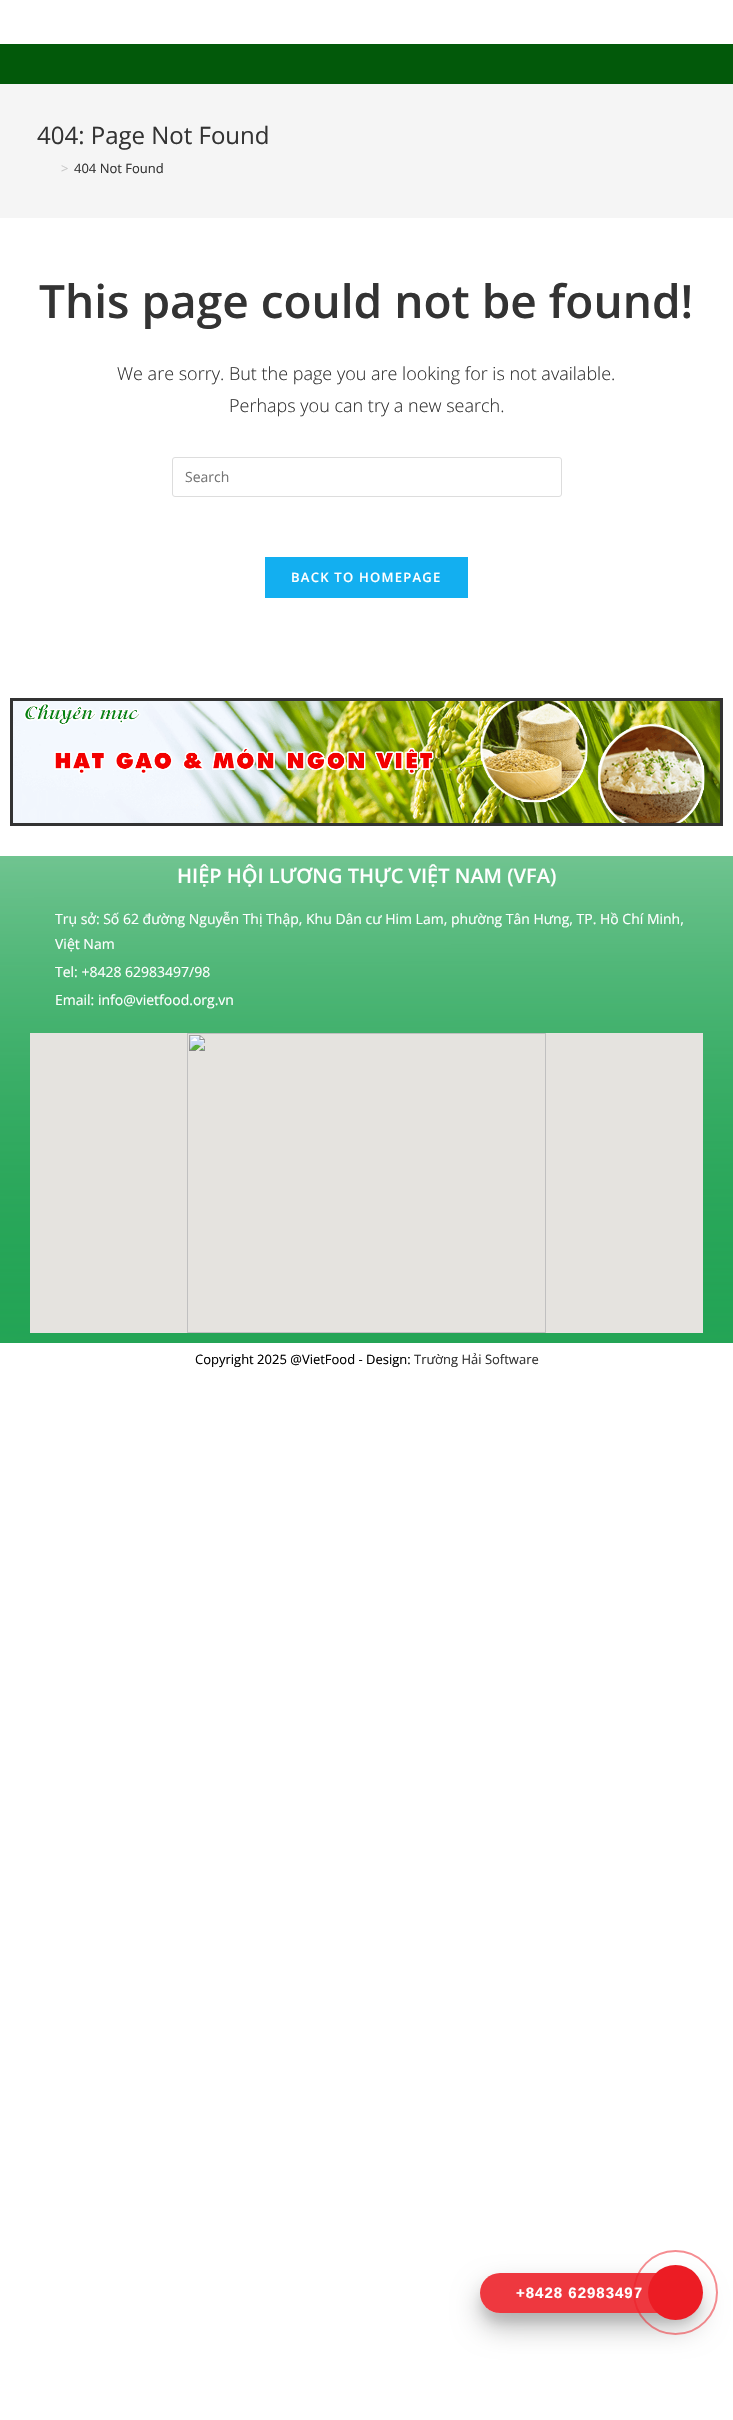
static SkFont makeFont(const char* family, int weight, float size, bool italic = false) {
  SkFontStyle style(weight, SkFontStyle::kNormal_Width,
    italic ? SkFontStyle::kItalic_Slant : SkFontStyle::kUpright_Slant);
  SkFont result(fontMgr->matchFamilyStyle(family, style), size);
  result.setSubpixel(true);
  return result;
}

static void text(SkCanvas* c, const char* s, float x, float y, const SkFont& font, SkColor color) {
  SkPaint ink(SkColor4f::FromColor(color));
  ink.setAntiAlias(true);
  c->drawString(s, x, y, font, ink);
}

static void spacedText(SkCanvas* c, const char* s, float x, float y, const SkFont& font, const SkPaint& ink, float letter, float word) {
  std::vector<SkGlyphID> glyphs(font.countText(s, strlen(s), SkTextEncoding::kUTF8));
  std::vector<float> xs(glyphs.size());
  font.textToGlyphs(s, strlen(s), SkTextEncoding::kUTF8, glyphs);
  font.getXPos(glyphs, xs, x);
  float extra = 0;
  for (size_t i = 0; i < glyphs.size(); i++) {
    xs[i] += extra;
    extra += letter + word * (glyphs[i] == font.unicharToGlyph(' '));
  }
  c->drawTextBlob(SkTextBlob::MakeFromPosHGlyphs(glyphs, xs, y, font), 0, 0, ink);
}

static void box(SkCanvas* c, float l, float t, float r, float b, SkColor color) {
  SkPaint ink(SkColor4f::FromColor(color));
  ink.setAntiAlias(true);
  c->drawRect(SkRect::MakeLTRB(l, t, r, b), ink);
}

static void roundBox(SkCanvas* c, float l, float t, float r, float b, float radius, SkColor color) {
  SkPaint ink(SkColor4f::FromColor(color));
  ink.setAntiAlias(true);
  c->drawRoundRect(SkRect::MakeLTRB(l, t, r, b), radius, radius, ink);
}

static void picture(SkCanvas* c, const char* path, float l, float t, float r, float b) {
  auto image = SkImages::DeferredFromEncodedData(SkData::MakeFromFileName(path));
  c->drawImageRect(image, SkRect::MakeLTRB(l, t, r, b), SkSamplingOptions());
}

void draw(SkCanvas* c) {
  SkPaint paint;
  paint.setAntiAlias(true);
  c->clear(0xffffffff);
  box(c, 0, 44, 733, 84, 0xff02590a);
  box(c, 0, 84, 733, 218, 0xfff5f5f5);
  SkFont face1 = makeFont("Open Sans", 400, 24);
  text(c, "404: Page Not Found", 37, 144, face1, 0xff333333);
  SkFont face2 = makeFont("Open Sans", 400, 13);
  text(c, ">", 61, 173, face2, 0xffc6c6c6);
  text(c, "404 Not Found", 74, 173, face2, 0xff333333);
  SkFont face3 = makeFont("Open Sans", 600, 46);
  text(c, "This page could not be found!", 39, 318, face3, 0xff333333);
  SkFont face4 = makeFont("Open Sans", 300, 18);
  text(c, "We are sorry. But the page you are looking for is not available.", 117, 380, face4, 0xff333333);
  text(c, "Perhaps you can try a new search.", 229, 412, face4, 0xff333333);
  paint.setStyle(SkPaint::kStroke_Style);
  paint.setStrokeWidth(1);
  paint.setColor(0xffdddddd);
  c->drawRoundRect(SkRect::MakeLTRB(172.5f, 457.5f, 561.5f, 496.5f), 2.5f, 2.5f, paint);
  SkFont face5 = makeFont("Open Sans", 400, 14);
  text(c, "Search", 185, 482, face5, 0xff757575);
  box(c, 265, 557, 468, 598, 0xff13aff0);
  SkFont face6 = makeFont("Open Sans", 600, 13);
  paint.setStyle(SkPaint::kFill_Style);
  paint.setColor(0xffffffff);
  spacedText(c, "BACK TO HOMEPAGE", 291, 582, face6, paint, 1.25f, 0);
  paint.setStyle(SkPaint::kStroke_Style);
  paint.setStrokeWidth(3);
  paint.setColor(0xff333333);
  c->drawRect(SkRect::MakeLTRB(11.5f, 699.5f, 721.5f, 824.5f), paint);
  picture(c, "img_01.png", 13, 701, 720, 823);
  paint.setStyle(SkPaint::kFill_Style);
  {
    const SkColor colors[] = {0xff94d3ac, 0xff23a455};
    const float stops[] = {0, 1};
    const SkPoint ends[] = {{366, 856}, {367, 1343}};
    paint.setShader(SkGradientShader::MakeLinear(ends, colors, stops, 2, SkTileMode::kClamp));
    paint.setAlpha(255);
  }
  c->drawRect(SkRect::MakeLTRB(0, 856, 733, 1340), paint);
  {
    const SkColor colors[] = {0x5223a455, 0xff23a455};
    const float stops[] = {0, 1};
    const SkPoint ends[] = {{366, 856}, {367, 1343}};
    paint.setShader(SkGradientShader::MakeLinear(ends, colors, stops, 2, SkTileMode::kClamp));
    paint.setAlpha(255);
  }
  c->drawRect(SkRect::MakeLTRB(0, 856, 733, 1343), paint);
  SkFont face7 = makeFont("Open Sans", 600, 20);
  text(c, "HIỆP HỘI LƯƠNG THỰC VIỆT NAM (VFA)", 177, 883, face7, 0xffffffff);
  text(c, "Trụ sở: Số 62 đường Nguyễn Thị Thập, Khu Dân cư Him Lam, phường Tân Hưng, TP. Hồ Chí Minh,", 55, 924, face5, 0xffffffff);
  text(c, "Việt Nam", 55, 949, face5, 0xffffffff);
  text(c, "Tel: +8428 62983497/98", 55, 977, face5, 0xffffffff);
  text(c, "Email: info@vietfood.org.vn", 55, 1005, face5, 0xffffffff);
  picture(c, "img_02.png", 30, 1033, 703, 1333);
  text(c, "Copyright 2025 @VietFood - Design:", 195, 1364, face2, 0xff000000);
  text(c, "Trường Hải Software", 414, 1364, face2, 0xff333333);
  c->save();
  c->clipPath(SkPathBuilder(SkPathFillType::kEvenOdd).moveTo(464, 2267).lineTo(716, 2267).lineTo(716, 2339).lineTo(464, 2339).close().moveTo(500, 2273).lineTo(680, 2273).cubicTo(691, 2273, 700, 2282, 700, 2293).cubicTo(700, 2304, 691, 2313, 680, 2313).lineTo(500, 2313).cubicTo(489, 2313, 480, 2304, 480, 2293).cubicTo(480, 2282, 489, 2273, 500, 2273).close().detach(), true);
  paint.setShader(nullptr);
  paint.setColor(0x1a000000);
  paint.setMaskFilter(SkMaskFilter::MakeBlur(kNormal_SkBlurStyle, 5));
  c->drawRoundRect(SkRect::MakeLTRB(480, 2283, 700, 2323), 20, 20, paint);
  paint.setMaskFilter(nullptr);
  c->restore();
  c->save();
  c->clipPath(SkPathBuilder(SkPathFillType::kEvenOdd).moveTo(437, 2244).lineTo(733, 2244).lineTo(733, 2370).lineTo(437, 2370).close().moveTo(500, 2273).lineTo(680, 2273).cubicTo(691, 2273, 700, 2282, 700, 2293).cubicTo(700, 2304, 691, 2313, 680, 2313).lineTo(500, 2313).cubicTo(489, 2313, 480, 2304, 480, 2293).cubicTo(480, 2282, 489, 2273, 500, 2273).close().detach(), true);
  paint.setColor(0x40000000);
  paint.setMaskFilter(SkMaskFilter::MakeBlur(kNormal_SkBlurStyle, 14));
  c->drawRoundRect(SkRect::MakeLTRB(480, 2287, 700, 2327), 20, 20, paint);
  paint.setMaskFilter(nullptr);
  c->restore();
  roundBox(c, 480, 2273, 700, 2313, 20, 0xe0ec1c24);
  SkFont face8 = makeFont("Liberation Sans", 700, 15);
  paint.setColor(0xffffffff);
  spacedText(c, "+8428 62983497", 516, 2298, face8, paint, 1, 0);
  paint.setStyle(SkPaint::kStroke_Style);
  paint.setStrokeWidth(2);
  paint.setColor(0x80ec1c24);
  c->drawCircle(675.5f, 2292.5f, 41.5f, paint);
  paint.setStyle(SkPaint::kFill_Style);
  paint.setColor(0xffec1c24);
  c->drawCircle(675.5f, 2292.5f, 27.5f, paint);
}
